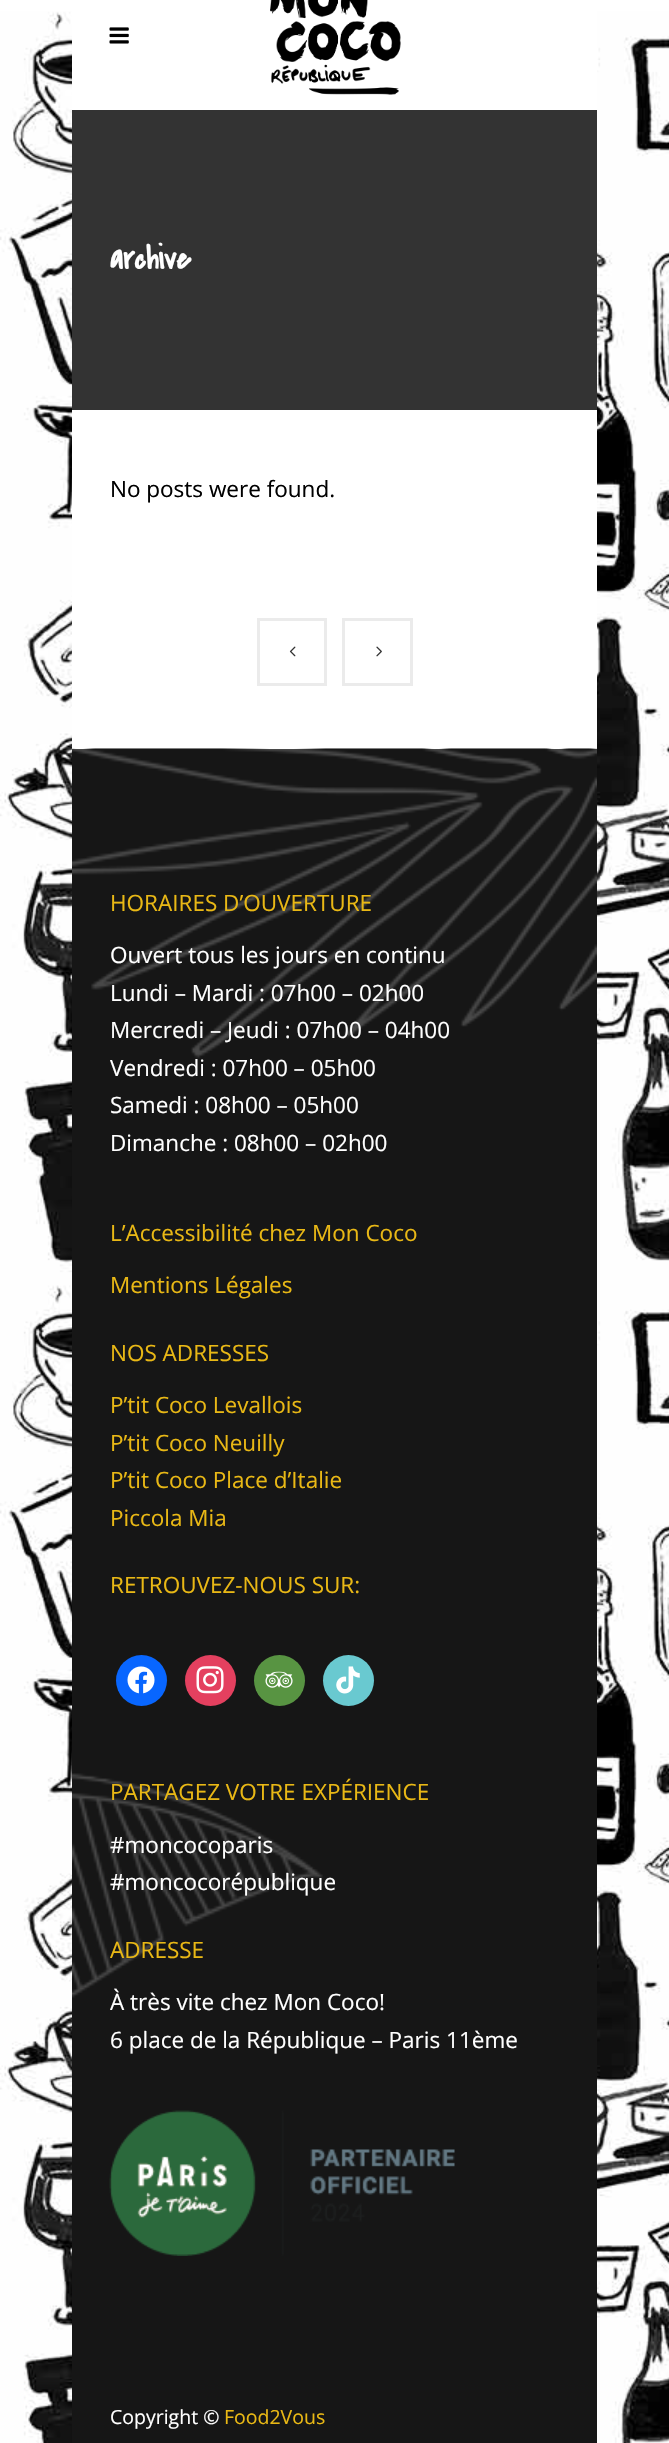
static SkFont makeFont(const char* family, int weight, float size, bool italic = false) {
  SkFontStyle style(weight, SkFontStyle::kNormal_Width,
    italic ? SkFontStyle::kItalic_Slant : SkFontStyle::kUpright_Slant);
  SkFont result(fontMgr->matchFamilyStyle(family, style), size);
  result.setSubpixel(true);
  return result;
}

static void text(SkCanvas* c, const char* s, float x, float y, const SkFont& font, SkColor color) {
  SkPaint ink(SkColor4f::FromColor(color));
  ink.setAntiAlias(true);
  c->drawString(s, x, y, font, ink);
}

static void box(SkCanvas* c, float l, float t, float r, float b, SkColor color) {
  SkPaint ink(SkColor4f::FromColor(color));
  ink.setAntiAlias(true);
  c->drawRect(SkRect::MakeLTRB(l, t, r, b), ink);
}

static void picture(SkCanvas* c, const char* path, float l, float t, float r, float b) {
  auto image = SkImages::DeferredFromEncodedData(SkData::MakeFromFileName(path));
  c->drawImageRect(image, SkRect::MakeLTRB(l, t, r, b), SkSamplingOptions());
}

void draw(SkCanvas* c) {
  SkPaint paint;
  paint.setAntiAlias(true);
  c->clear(0xffffffff);
  picture(c, "img_01.png", 0, 11, 669, 2443);
  box(c, 72, 11, 597, 749, 0xffffffff);
  picture(c, "img_02.png", 109, 27, 129, 44);
  picture(c, "img_03.png", 270, 0, 401, 95);
  box(c, 72, 110, 597, 410, 0xff333333);
  SkFont face1 = makeFont("Covered By Your Grace", 700, 33);
  text(c, "archive", 110, 269, face1, 0xffffffff);
  SkFont face2 = makeFont("Open Sans", 400, 22.5f);
  text(c, "No posts were found.", 110, 497, face2, 0xff000000);
  paint.setStyle(SkPaint::kStroke_Style);
  paint.setStrokeWidth(3);
  paint.setColor(0xffebebeb);
  c->drawRect(SkRect::MakeLTRB(258.5f, 619.5f, 325.5f, 684.5f), paint);
  picture(c, "img_04.png", 289, 646, 296, 657);
  c->drawRect(SkRect::MakeLTRB(343.5f, 619.5f, 411.5f, 684.5f), paint);
  picture(c, "img_05.png", 376, 646, 382, 657);
  picture(c, "img_06.png", 72, 748, 597, 2443);
  text(c, "HORAIRES D’OUVERTURE", 110, 911, face2, 0xffe9b815);
  text(c, "Ouvert tous les jours en continu", 110, 963, face2, 0xffffffff);
  text(c, "Lundi – Mardi : 07h00 – 02h00", 110, 1001, face2, 0xffffffff);
  text(c, "Mercredi – Jeudi : 07h00 – 04h00", 110, 1038, face2, 0xffffffff);
  text(c, "Vendredi : 07h00 – 05h00", 110, 1076, face2, 0xffffffff);
  text(c, "Samedi : 08h00 – 05h00", 110, 1113, face2, 0xffffffff);
  text(c, "Dimanche : 08h00 – 02h00", 110, 1151, face2, 0xffffffff);
  text(c, "L’Accessibilité chez Mon Coco", 110, 1241, face2, 0xffe9b815);
  text(c, "Mentions Légales", 110, 1293, face2, 0xffe9b815);
  text(c, "NOS ADRESSES", 110, 1361, face2, 0xffe9b815);
  text(c, "P’tit Coco Levallois", 110, 1413, face2, 0xffe9b815);
  text(c, "P’tit Coco Neuilly", 110, 1451, face2, 0xffe9b815);
  text(c, "P’tit Coco Place d’Italie", 110, 1488, face2, 0xffe9b815);
  text(c, "Piccola Mia", 110, 1526, face2, 0xffe9b815);
  text(c, "RETROUVEZ-NOUS SUR:", 110, 1593, face2, 0xffe9b815);
  paint.setStyle(SkPaint::kFill_Style);
  paint.setColor(0xff0866ff);
  c->drawCircle(141.5f, 1680.5f, 25.5f, paint);
  picture(c, "img_07.png", 127, 1666, 155, 1694);
  paint.setColor(0xffe4405f);
  c->drawCircle(210.5f, 1680.5f, 25.5f, paint);
  picture(c, "img_08.png", 196, 1666, 224, 1694);
  paint.setColor(0xff589442);
  c->drawCircle(279.5f, 1680.5f, 25.5f, paint);
  picture(c, "img_09.png", 265, 1671, 293, 1688);
  paint.setColor(0xff69c9d0);
  c->drawCircle(348.5f, 1680.5f, 25.5f, paint);
  picture(c, "img_10.png", 336, 1666, 360, 1694);
  text(c, "PARTAGEZ VOTRE EXPÉRIENCE", 110, 1800, face2, 0xffe9b815);
  text(c, "#moncocoparis", 110, 1853, face2, 0xffffffff);
  text(c, "#moncocorépublique", 110, 1890, face2, 0xffffffff);
  text(c, "ADRESSE", 110, 1958, face2, 0xffe9b815);
  text(c, "À très vite chez Mon Coco!", 110, 2010, face2, 0xffffffff);
  text(c, "6 place de la République – Paris 11ème", 110, 2048, face2, 0xffffffff);
  picture(c, "img_11.png", 109, 2110, 455, 2256);
  SkFont face3 = makeFont("Open Sans", 400, 19.5f);
  text(c, "Copyright ©", 110, 2424, face3, 0xffffffff);
  text(c, "Food2Vous", 224, 2424, face3, 0xffe9b815);
}
